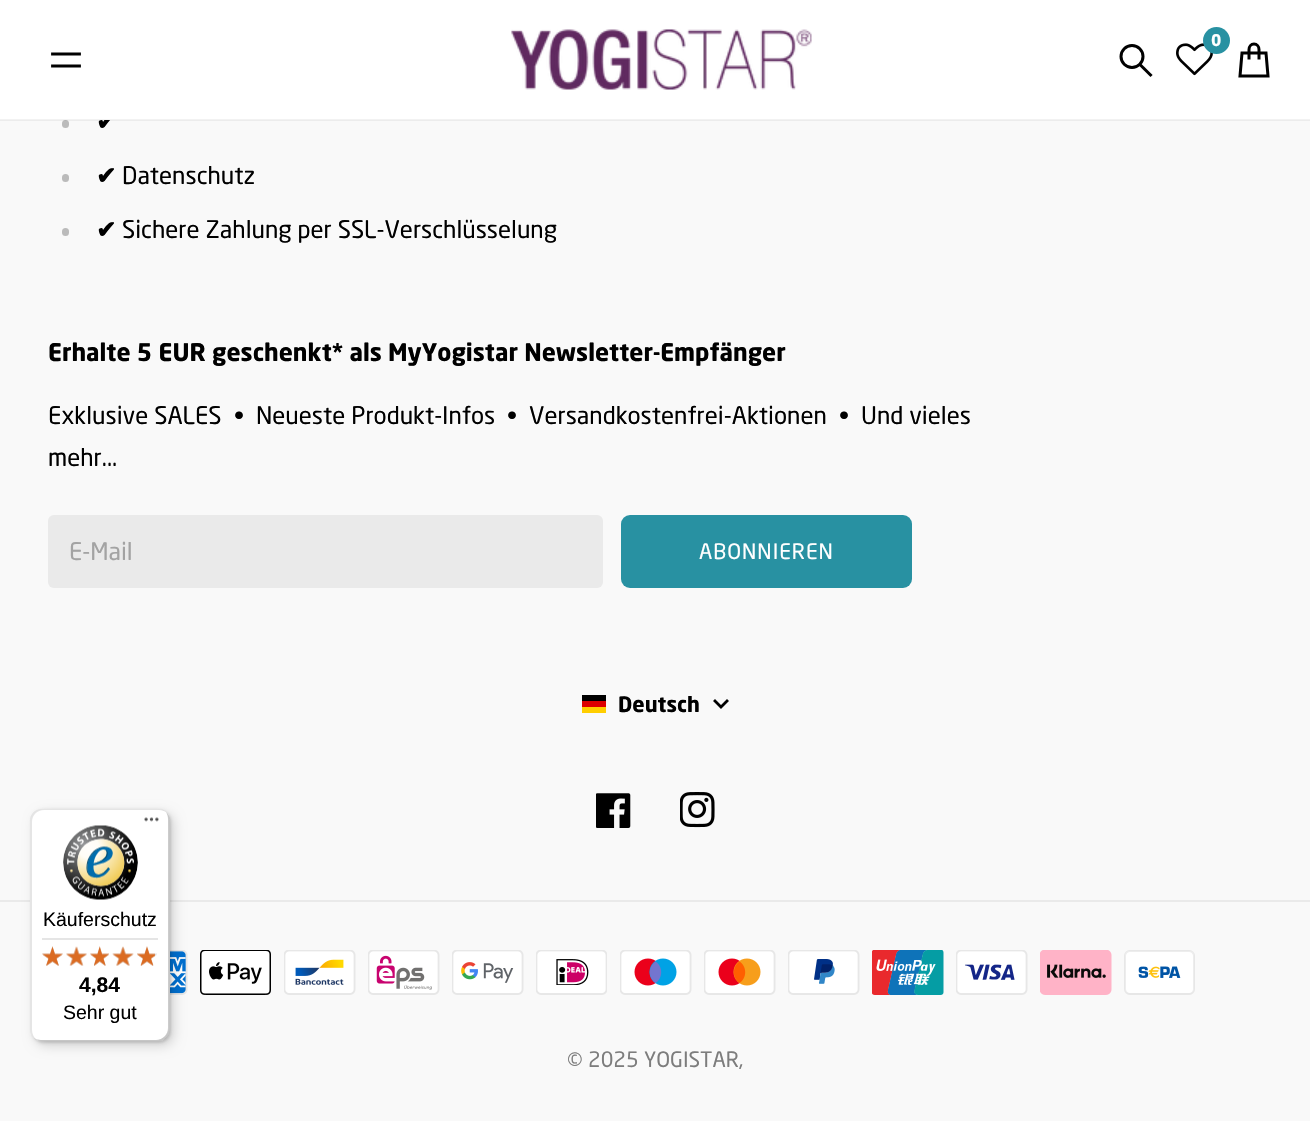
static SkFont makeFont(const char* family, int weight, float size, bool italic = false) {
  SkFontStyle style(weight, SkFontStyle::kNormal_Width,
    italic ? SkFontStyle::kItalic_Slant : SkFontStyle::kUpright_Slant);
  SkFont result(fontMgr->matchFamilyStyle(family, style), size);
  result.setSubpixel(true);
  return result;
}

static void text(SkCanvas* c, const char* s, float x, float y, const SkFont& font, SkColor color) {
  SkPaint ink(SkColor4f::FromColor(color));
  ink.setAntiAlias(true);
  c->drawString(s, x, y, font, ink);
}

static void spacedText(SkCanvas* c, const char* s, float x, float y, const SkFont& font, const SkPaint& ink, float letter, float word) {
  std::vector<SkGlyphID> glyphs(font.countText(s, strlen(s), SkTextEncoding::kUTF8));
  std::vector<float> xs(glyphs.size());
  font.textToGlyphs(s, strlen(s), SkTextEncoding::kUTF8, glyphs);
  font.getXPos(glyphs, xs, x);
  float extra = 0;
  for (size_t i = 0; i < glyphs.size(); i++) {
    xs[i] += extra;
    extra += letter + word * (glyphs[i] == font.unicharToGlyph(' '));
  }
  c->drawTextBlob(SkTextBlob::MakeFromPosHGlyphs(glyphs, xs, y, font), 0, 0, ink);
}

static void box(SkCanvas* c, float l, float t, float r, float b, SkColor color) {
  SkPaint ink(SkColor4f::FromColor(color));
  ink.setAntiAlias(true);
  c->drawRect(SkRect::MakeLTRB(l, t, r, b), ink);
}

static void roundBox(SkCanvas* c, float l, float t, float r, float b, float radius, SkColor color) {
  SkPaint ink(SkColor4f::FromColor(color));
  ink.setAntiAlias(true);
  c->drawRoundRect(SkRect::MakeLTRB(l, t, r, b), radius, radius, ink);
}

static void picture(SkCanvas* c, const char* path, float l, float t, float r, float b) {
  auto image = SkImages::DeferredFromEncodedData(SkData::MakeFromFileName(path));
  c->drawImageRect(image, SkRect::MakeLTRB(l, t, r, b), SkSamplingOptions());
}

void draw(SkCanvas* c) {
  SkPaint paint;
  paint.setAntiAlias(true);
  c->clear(0xfff9f9f9);
  SkFont face1 = makeFont("DejaVu Sans", 700, 24);
  text(c, "✔", 96, 130, face1, 0xff000000);
  box(c, 0, 0, 1310, 120, 0xffffffff);
  roundBox(c, 62, 120, 69, 128, 3.5f, 0xffbbbbbb);
  box(c, 0, 119, 1310, 121, 0x0d000000);
  picture(c, "img_01.png", 511, 29, 812, 90);
  picture(c, "img_02.png", 1176, 43, 1213, 76);
  paint.setColor(0xff2891a2);
  c->drawCircle(1216.5f, 40.5f, 13.5f, paint);
  SkFont face2 = makeFont("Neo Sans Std", 700, 16);
  text(c, "0", 1211, 46, face2, 0xffffffff);
  paint.setStyle(SkPaint::kStroke_Style);
  paint.setStrokeWidth(3);
  paint.setStrokeCap(SkPaint::kSquare_Cap);
  paint.setColor(0xff000000);
  c->drawPath(SkPathBuilder().moveTo(1150.5f, 75).lineTo(1140, 64.5f).detach(), paint);
  paint.setStrokeCap(SkPaint::kButt_Cap);
  c->drawCircle(1132, 56.5f, 11, paint);
  paint.setStrokeCap(SkPaint::kSquare_Cap);
  c->drawPath(SkPathBuilder().moveTo(1249, 58).lineTo(1249, 49.5f).cubicTo(1249, 46.5f, 1251, 44, 1254, 44).cubicTo(1257, 44, 1259, 46.5f, 1259, 49.5f).lineTo(1259, 58).moveTo(1240, 76).lineTo(1268, 76).lineTo(1266, 53).lineTo(1242, 53).close().detach(), paint);
  paint.setStrokeWidth(2.8f);
  c->drawPath(SkPathBuilder().moveTo(79.5f, 66).lineTo(52.5f, 66).moveTo(79.5f, 54).lineTo(52.5f, 54).detach(), paint);
  roundBox(c, 62, 174, 69, 182, 3.5f, 0xffbbbbbb);
  text(c, "✔", 96, 184, face1, 0xff000000);
  SkFont face3 = makeFont("Neo Sans Std", 400, 24);
  text(c, "Datenschutz", 122, 184, face3, 0xff000000);
  roundBox(c, 62, 228, 69, 236, 3.5f, 0xffbbbbbb);
  text(c, "✔", 96, 238, face1, 0xff000000);
  text(c, "Sichere Zahlung per SSL-Verschlüsselung", 122, 238, face3, 0xff000000);
  SkFont face4 = makeFont("Neo Sans Std", 700, 24);
  text(c, "Erhalte 5 EUR geschenkt* als MyYogistar Newsletter-Empfänger", 48, 361, face4, 0xff000000);
  text(c, "Exklusive SALES", 48, 424, face3, 0xff000000);
  text(c, "•", 234, 424, face3, 0xff000000);
  text(c, "Neueste Produkt-Infos", 256, 424, face3, 0xff000000);
  text(c, "•", 507, 424, face3, 0xff000000);
  text(c, "Versandkostenfrei-Aktionen", 529, 424, face3, 0xff000000);
  text(c, "•", 839, 424, face3, 0xff000000);
  text(c, "Und vieles", 861, 424, face3, 0xff000000);
  text(c, "mehr...", 48, 466, face3, 0xff000000);
  roundBox(c, 48, 515, 603, 588, 6, 0xffeaeaea);
  text(c, "E-Mail", 69, 560, face3, 0xffa3a3a3);
  roundBox(c, 621, 515, 912, 588, 9, 0xff2891a2);
  SkFont face5 = makeFont("Neo Sans Std", 400, 21);
  paint.setStyle(SkPaint::kFill_Style);
  paint.setColor(0xffffffff);
  spacedText(c, "ABONNIEREN", 699, 559, face5, paint, 1, 0);
  box(c, 582, 707, 606, 713, 0xffffce00);
  box(c, 582, 695, 606, 701, 0xff000000);
  box(c, 582, 701, 606, 707, 0xffdd0000);
  SkFont face6 = makeFont("Neo Sans Std", 700, 21);
  text(c, "Deutsch", 618, 712, face6, 0xff000000);
  paint.setStyle(SkPaint::kStroke_Style);
  paint.setColor(0xff000000);
  c->drawPath(SkPathBuilder().moveTo(715, 701).lineTo(721, 707).lineTo(727, 701).detach(), paint);
  picture(c, "img_03.png", 596, 793, 631, 828);
  picture(c, "img_04.png", 680, 792, 715, 828);
  box(c, 0, 900, 1310, 902, 0xffeaeaea);
  picture(c, "img_05.png", 170, 950, 188, 995);
  picture(c, "img_06.png", 200, 950, 271, 995);
  picture(c, "img_07.png", 284, 950, 356, 995);
  picture(c, "img_08.png", 368, 950, 440, 995);
  picture(c, "img_09.png", 452, 950, 524, 995);
  picture(c, "img_10.png", 536, 950, 607, 995);
  picture(c, "img_11.png", 620, 950, 692, 995);
  picture(c, "img_12.png", 704, 950, 776, 995);
  picture(c, "img_13.png", 788, 950, 860, 995);
  picture(c, "img_14.png", 872, 950, 944, 995);
  picture(c, "img_15.png", 956, 950, 1028, 995);
  picture(c, "img_16.png", 1040, 950, 1112, 995);
  picture(c, "img_17.png", 1124, 950, 1195, 995);
  text(c, "© 2025 YOGISTAR,", 567, 1067, face5, 0xff7d7d7d);
  paint.setStyle(SkPaint::kFill_Style);
  paint.setColor(0x26000000);
  paint.setMaskFilter(SkMaskFilter::MakeBlur(kNormal_SkBlurStyle, 6));
  c->drawRoundRect(SkRect::MakeLTRB(35, 813, 174, 1046), 12, 12, paint);
  paint.setMaskFilter(nullptr);
  paint.setMaskFilter(SkMaskFilter::MakeBlur(kNormal_SkBlurStyle, 1.5f));
  c->drawRoundRect(SkRect::MakeLTRB(32, 810, 171, 1043), 12, 12, paint);
  paint.setMaskFilter(nullptr);
  roundBox(c, 30, 809, 170, 1041, 12, 0xffffffff);
  paint.setColor(0x1a000000);
  c->drawPath(SkPathBuilder().moveTo(44, 810).lineTo(159, 810).cubicTo(162, 810, 164, 811, 166, 812).cubicTo(164, 810, 161, 809, 158, 809).lineTo(42, 809).cubicTo(35, 809, 30, 814, 30, 821).lineTo(30, 1029).cubicTo(30, 1034, 33, 1038, 37, 1040).cubicTo(34, 1038, 32, 1034, 32, 1030).lineTo(32, 822).cubicTo(32, 815, 37, 810, 44, 810).close().detach(), paint);
  paint.setColor(0x33000000);
  c->drawPath(SkPathBuilder().moveTo(35, 1038).cubicTo(37, 1040, 39, 1041, 42, 1041).lineTo(158, 1041).cubicTo(165, 1041, 170, 1036, 170, 1029).lineTo(170, 821).cubicTo(170, 817, 168, 814, 166, 812).cubicTo(167, 814, 168, 816, 168, 819).lineTo(168, 1028).cubicTo(168, 1034, 163, 1040, 156, 1040).lineTo(40, 1040).cubicTo(38, 1040, 36, 1039, 35, 1038).close().detach(), paint);
  paint.setColor(0x33323232);
  c->drawPath(SkPathBuilder().moveTo(34, 1038).cubicTo(36, 1040, 39, 1041, 42, 1041).lineTo(158, 1041).cubicTo(165, 1041, 170, 1036, 170, 1029).lineTo(170, 821).cubicTo(170, 817, 168, 814, 166, 812).cubicTo(168, 814, 169, 817, 169, 820).lineTo(169, 1028).cubicTo(169, 1035, 163, 1040, 157, 1040).lineTo(41, 1040).cubicTo(38, 1040, 36, 1039, 34, 1038).close().detach(), paint);
  paint.setColor(0x4dffffff);
  c->drawPath(SkPathBuilder().moveTo(33, 1037).cubicTo(35, 1039, 38, 1041, 42, 1041).lineTo(158, 1041).cubicTo(165, 1041, 170, 1036, 170, 1029).lineTo(170, 821).cubicTo(170, 817, 168, 814, 166, 812).cubicTo(168, 814, 169, 817, 169, 820).lineTo(169, 1028).cubicTo(169, 1035, 163, 1040, 157, 1040).lineTo(41, 1040).cubicTo(38, 1040, 35, 1039, 33, 1037).close().detach(), paint);
  picture(c, "img_18.png", 144, 817, 159, 822);
  picture(c, "img_19.png", 63, 825, 138, 900);
  SkFont face7 = makeFont("Liberation Sans", 400, 19.5f);
  text(c, "Käuferschutz", 43, 926, face7, 0xff000000);
  box(c, 42, 938, 158, 940, 0xffe5e5e5);
  picture(c, "img_20.png", 42, 946, 63, 966);
  picture(c, "img_21.png", 66, 947, 87, 966);
  picture(c, "img_22.png", 90, 946, 109, 966);
  picture(c, "img_23.png", 113, 947, 133, 966);
  picture(c, "img_24.png", 137, 946, 157, 966);
  picture(c, "img_25.png", 42, 946, 63, 966);
  picture(c, "img_26.png", 66, 946, 87, 966);
  picture(c, "img_27.png", 90, 946, 109, 966);
  picture(c, "img_28.png", 112, 946, 134, 966);
  picture(c, "img_29.png", 137, 946, 155, 966);
  SkFont face8 = makeFont("Liberation Sans", 700, 21);
  text(c, "4,84", 79, 992, face8, 0xff000000);
  text(c, "Sehr gut", 63, 1019, face7, 0xff000000);
}
